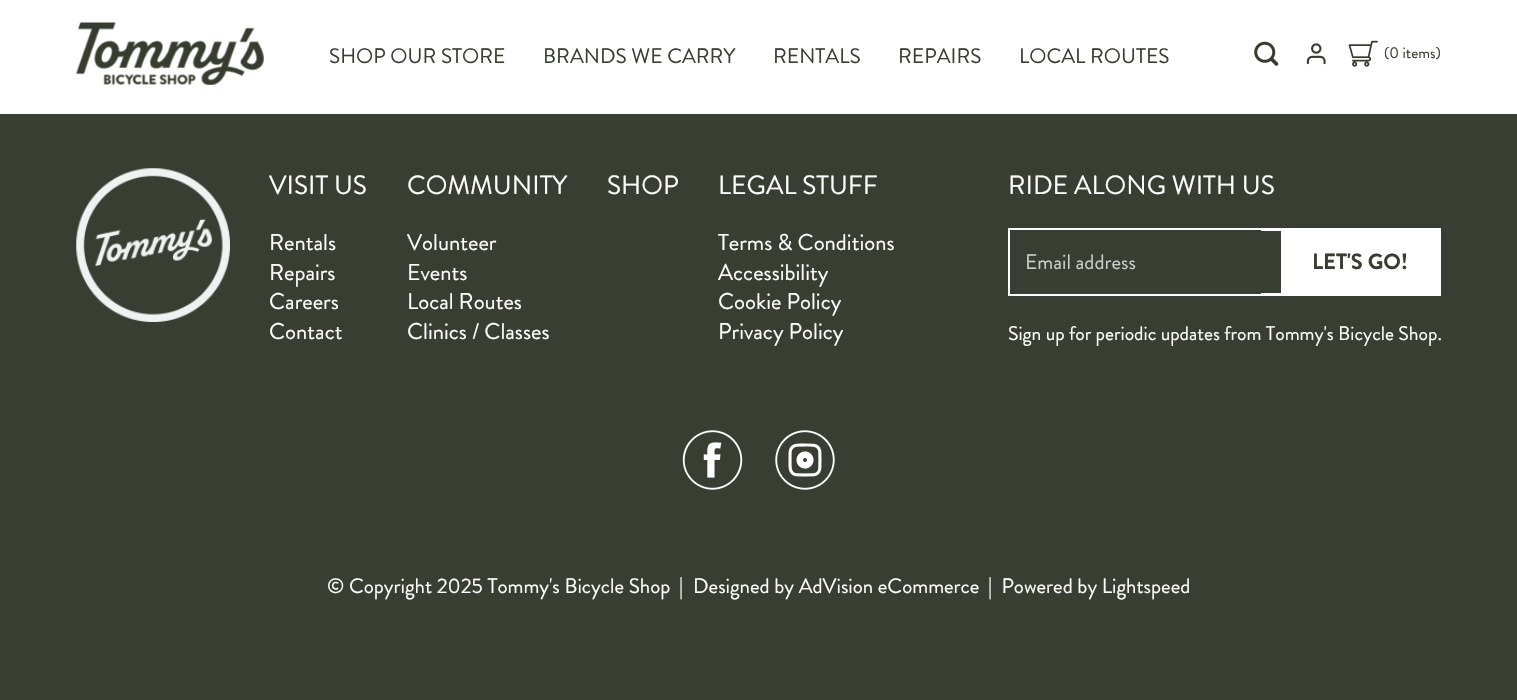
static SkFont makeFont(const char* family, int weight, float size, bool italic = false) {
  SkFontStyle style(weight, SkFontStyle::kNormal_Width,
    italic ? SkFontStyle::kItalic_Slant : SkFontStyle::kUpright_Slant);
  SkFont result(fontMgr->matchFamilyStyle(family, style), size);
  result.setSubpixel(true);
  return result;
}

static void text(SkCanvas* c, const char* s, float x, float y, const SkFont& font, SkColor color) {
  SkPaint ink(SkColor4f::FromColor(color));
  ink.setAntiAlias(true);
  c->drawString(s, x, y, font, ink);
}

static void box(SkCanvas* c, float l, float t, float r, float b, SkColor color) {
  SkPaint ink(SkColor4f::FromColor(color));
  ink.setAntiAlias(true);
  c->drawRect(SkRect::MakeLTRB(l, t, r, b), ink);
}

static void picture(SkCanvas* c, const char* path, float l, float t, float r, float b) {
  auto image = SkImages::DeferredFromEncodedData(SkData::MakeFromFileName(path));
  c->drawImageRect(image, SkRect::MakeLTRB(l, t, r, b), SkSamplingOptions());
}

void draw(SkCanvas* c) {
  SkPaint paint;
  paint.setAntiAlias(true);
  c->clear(0xff393e32);
  box(c, 0, 0, 1517, 114, 0xffffffff);
  picture(c, "img_01.png", 76, 22, 264, 85);
  SkFont face1 = makeFont("Brandon Grotesque", 400, 20.9f);
  text(c, "SHOP OUR STORE", 329, 63, face1, 0xff393e32);
  text(c, "BRANDS WE CARRY", 543, 63, face1, 0xff393e32);
  text(c, "RENTALS", 773, 63, face1, 0xff393e32);
  text(c, "REPAIRS", 898, 63, face1, 0xff393e32);
  text(c, "LOCAL ROUTES", 1019, 63, face1, 0xff393e32);
  picture(c, "img_02.png", 1254, 41, 1279, 66);
  picture(c, "img_03.png", 1306, 43, 1326, 65);
  picture(c, "img_04.png", 1348, 40, 1378, 67);
  SkFont face2 = makeFont("Brandon Grotesque", 400, 15.5f);
  text(c, "(0 items)", 1384, 58, face2, 0xff393e32);
  picture(c, "img_05.png", 76, 168, 230, 322);
  SkFont face3 = makeFont("Brandon Grotesque", 400, 26.4f);
  text(c, "VISIT US", 269, 194, face3, 0xffffffff);
  SkFont face4 = makeFont("Brandon Grotesque", 400, 22.75f);
  text(c, "Rentals", 269, 250, face4, 0xffffffff);
  text(c, "Repairs", 269, 280, face4, 0xffffffff);
  text(c, "Careers", 269, 309, face4, 0xffffffff);
  text(c, "Contact", 269, 339, face4, 0xffffffff);
  text(c, "COMMUNITY", 407, 194, face3, 0xffffffff);
  text(c, "Volunteer", 407, 250, face4, 0xffffffff);
  text(c, "Events", 407, 280, face4, 0xffffffff);
  text(c, "Local Routes", 407, 309, face4, 0xffffffff);
  text(c, "Clinics / Classes", 407, 339, face4, 0xffffffff);
  text(c, "SHOP", 607, 194, face3, 0xffffffff);
  text(c, "LEGAL STUFF", 718, 194, face3, 0xffffffff);
  text(c, "Terms & Conditions", 718, 250, face4, 0xffffffff);
  text(c, "Accessibility", 718, 280, face4, 0xffffffff);
  text(c, "Cookie Policy", 718, 309, face4, 0xffffffff);
  text(c, "Privacy Policy", 718, 339, face4, 0xffffffff);
  text(c, "RIDE ALONG WITH US", 1008, 194, face3, 0xffffffff);
  paint.setStyle(SkPaint::kStroke_Style);
  paint.setStrokeWidth(3);
  paint.setColor(0xffffffff);
  c->drawRect(SkRect::MakeLTRB(1009.5f, 229.5f, 1439.5f, 294.5f), paint);
  box(c, 1010, 230, 1261, 294, 0xff393e32);
  text(c, "Email address", 1025, 269, face1, 0xffcccccc);
  box(c, 1281, 231, 1438, 293, 0xffffffff);
  SkFont face5 = makeFont("Brandon Grotesque", 700, 22);
  text(c, "LET'S GO!", 1312, 269, face5, 0xff393e32);
  SkFont face6 = makeFont("Brandon Grotesque", 400, 19.6f);
  text(c, "Sign up for periodic updates from Tommy's Bicycle Shop.", 1008, 340, face6, 0xffffffff);
  picture(c, "img_06.png", 682, 430, 743, 490);
  picture(c, "img_07.png", 775, 430, 835, 490);
  text(c, "© Copyright 2025 Tommy's Bicycle Shop", 327, 593, face1, 0xffffffff);
  text(c, "|", 679, 593, face1, 0xffffffff);
  text(c, "Designed by AdVision eCommerce", 693, 593, face1, 0xffffffff);
  text(c, "|  Powered by Lightspeed", 988, 593, face1, 0xffffffff);
}
